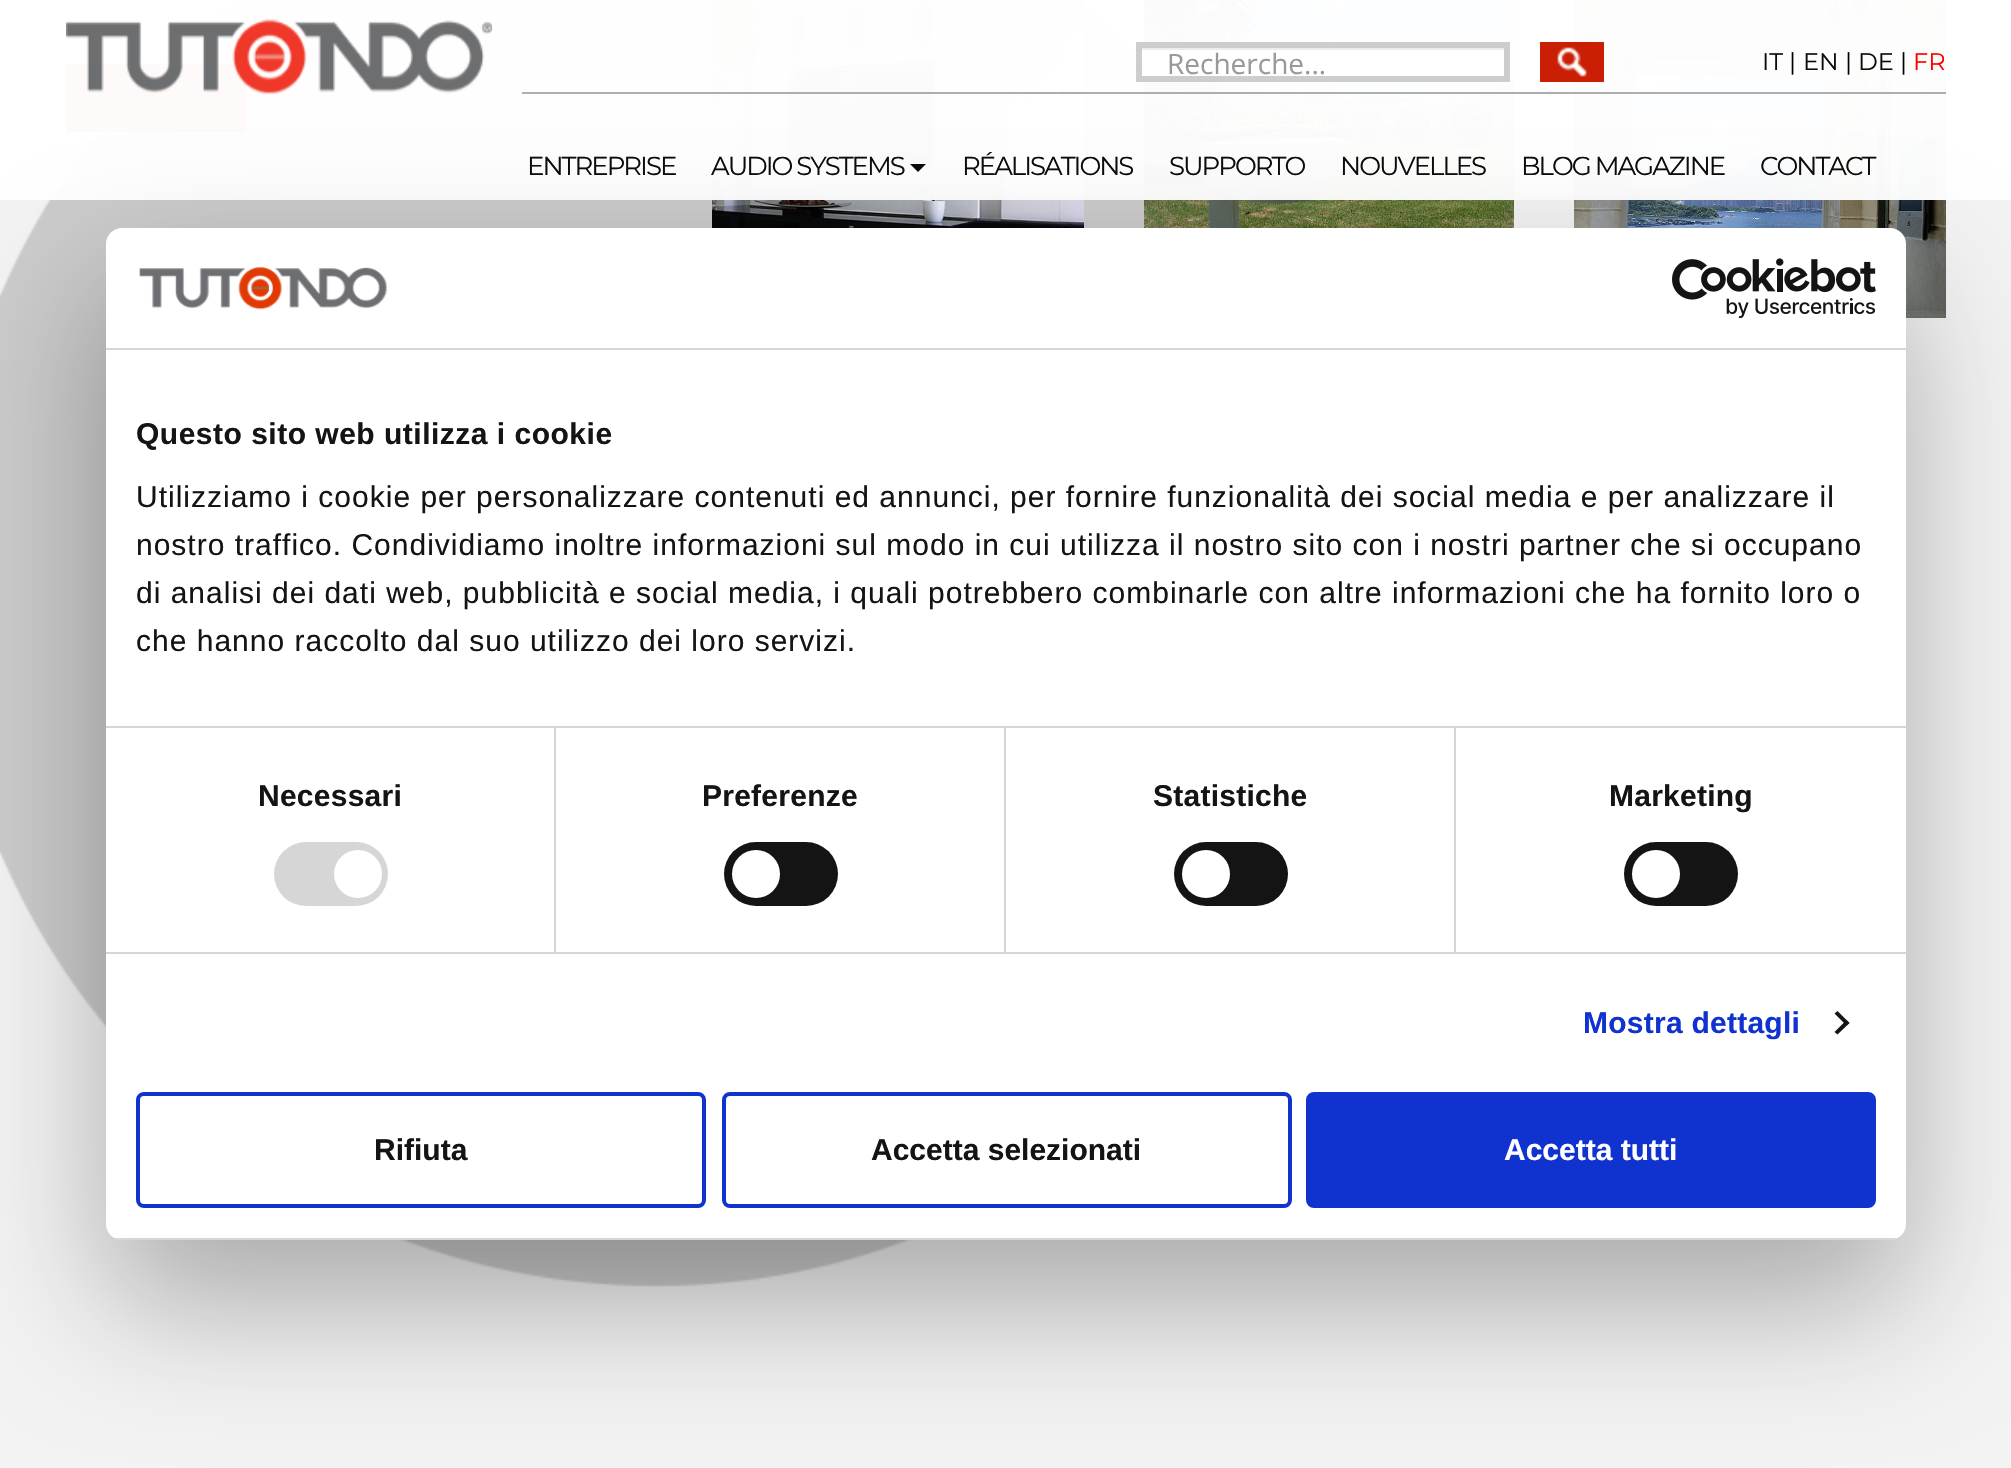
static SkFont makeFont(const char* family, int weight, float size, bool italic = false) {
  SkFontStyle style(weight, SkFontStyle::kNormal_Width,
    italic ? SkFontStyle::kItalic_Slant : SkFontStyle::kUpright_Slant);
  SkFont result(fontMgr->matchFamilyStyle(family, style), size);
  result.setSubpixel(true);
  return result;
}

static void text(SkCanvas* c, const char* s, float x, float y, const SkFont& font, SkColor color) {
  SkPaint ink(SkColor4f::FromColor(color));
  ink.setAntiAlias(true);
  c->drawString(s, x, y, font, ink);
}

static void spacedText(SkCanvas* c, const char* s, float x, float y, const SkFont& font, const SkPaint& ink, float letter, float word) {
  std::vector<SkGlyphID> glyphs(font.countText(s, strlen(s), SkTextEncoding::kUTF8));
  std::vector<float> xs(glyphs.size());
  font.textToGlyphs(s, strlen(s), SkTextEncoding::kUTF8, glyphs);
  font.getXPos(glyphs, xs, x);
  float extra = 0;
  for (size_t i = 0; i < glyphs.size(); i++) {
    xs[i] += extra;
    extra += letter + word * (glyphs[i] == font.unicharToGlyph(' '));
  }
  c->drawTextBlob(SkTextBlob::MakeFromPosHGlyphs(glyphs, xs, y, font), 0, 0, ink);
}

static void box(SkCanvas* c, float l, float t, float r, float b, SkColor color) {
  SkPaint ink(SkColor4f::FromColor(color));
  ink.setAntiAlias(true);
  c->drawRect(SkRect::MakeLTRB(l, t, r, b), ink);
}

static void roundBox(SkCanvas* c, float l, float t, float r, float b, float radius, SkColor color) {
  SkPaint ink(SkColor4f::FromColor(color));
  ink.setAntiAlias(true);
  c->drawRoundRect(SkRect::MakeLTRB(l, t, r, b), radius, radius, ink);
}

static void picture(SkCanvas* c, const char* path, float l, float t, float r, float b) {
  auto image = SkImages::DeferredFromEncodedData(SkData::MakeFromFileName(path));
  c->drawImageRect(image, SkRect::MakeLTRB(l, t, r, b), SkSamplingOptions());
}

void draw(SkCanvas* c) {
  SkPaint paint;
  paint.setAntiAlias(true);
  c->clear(0xfff3f3f3);
  picture(c, "img_01.png", 0, 0, 1144, 1287);
  box(c, 66, 64, 246, 132, 0xffff0000);
  picture(c, "img_02.png", 712, 0, 1084, 228);
  picture(c, "img_03.png", 1144, 0, 1514, 228);
  picture(c, "img_04.png", 1574, 0, 1946, 318);
  box(c, 0, 0, 2011, 200, 0xfaffffff);
  picture(c, "img_05.png", 66, 19, 492, 95);
  box(c, 522, 92, 1946, 94, 0xffaeaeae);
  box(c, 1144, 50, 1504, 76, 0xffffffff);
  box(c, 1142, 48, 1504, 50, 0xffececec);
  paint.setStyle(SkPaint::kStroke_Style);
  paint.setStrokeWidth(6);
  paint.setColor(0xffcdcdcd);
  c->drawRect(SkRect::MakeLTRB(1139, 45, 1507, 79), paint);
  SkFont face1 = makeFont("Open Sans", 400, 28);
  text(c, "Recherche...", 1167, 74, face1, 0xff999999);
  box(c, 1540, 42, 1604, 82, 0xffca1f05);
  picture(c, "img_06.png", 1557, 47, 1587, 77);
  SkFont face2 = makeFont("Montserrat", 400, 24);
  text(c, "IT", 1762, 70, face2, 0xff0c0c0c);
  text(c, "|", 1789, 70, face2, 0xff000000);
  text(c, "EN", 1803, 70, face2, 0xff0c0c0c);
  text(c, "|", 1845, 70, face2, 0xff000000);
  text(c, "DE", 1858, 70, face2, 0xff0c0c0c);
  text(c, "|", 1900, 70, face2, 0xff000000);
  text(c, "FR", 1913, 70, face2, 0xffff0000);
  SkFont face3 = makeFont("Montserrat", 400, 26);
  paint.setStyle(SkPaint::kFill_Style);
  paint.setColor(0xff0c0c0c);
  spacedText(c, "ENTREPRISE", 527, 175, face3, paint, -2, 0);
  spacedText(c, "AUDIO SYSTEMS", 711, 175, face3, paint, -2, 0);
  c->drawPath(SkPathBuilder().moveTo(910, 164).lineTo(926, 164).lineTo(918, 172).close().detach(), paint);
  spacedText(c, "RÉALISATIONS", 962, 175, face3, paint, -2, 0);
  spacedText(c, "SUPPORTO", 1169, 175, face3, paint, -2, 0);
  spacedText(c, "NOUVELLES", 1340, 175, face3, paint, -2, 0);
  spacedText(c, "BLOG MAGAZINE", 1521, 175, face3, paint, -2, 0);
  spacedText(c, "CONTACT", 1760, 175, face3, paint, -2, 0);
  paint.setColor(0x4d000000);
  paint.setMaskFilter(SkMaskFilter::MakeBlur(kNormal_SkBlurStyle, 68));
  c->drawRoundRect(SkRect::MakeLTRB(106, 292, 1906, 1304), 16, 16, paint);
  paint.setMaskFilter(nullptr);
  roundBox(c, 106, 228, 1906, 1240, 16, 0xffffffff);
  box(c, 106, 348, 1906, 350, 0xffd6d6d6);
  picture(c, "img_07.png", 139, 267, 388, 310);
  picture(c, "img_08.png", 1672, 258, 1876, 318);
  box(c, 106, 726, 1906, 728, 0xffd6d6d6);
  SkFont face4 = makeFont("Liberation Sans", 700, 30);
  paint.setColor(0xff141414);
  spacedText(c, "Questo sito web utilizza i cookie", 136, 444, face4, paint, 0.5f, 0);
  SkFont face5 = makeFont("Liberation Sans", 400, 30);
  spacedText(c, "Utilizziamo i cookie per personalizzare contenuti ed annunci, per fornire funzionalità dei social media e per analizzare il", 136, 507, face5, paint, 1, 0);
  spacedText(c, "nostro traffico. Condividiamo inoltre informazioni sul modo in cui utilizza il nostro sito con i nostri partner che si occupano", 136, 555, face5, paint, 1, 0);
  spacedText(c, "di analisi dei dati web, pubblicità e social media, i quali potrebbero combinarle con altre informazioni che ha fornito loro o", 136, 603, face5, paint, 1, 0);
  spacedText(c, "che hanno raccolto dal suo utilizzo dei loro servizi.", 136, 651, face5, paint, 1, 0);
  box(c, 106, 952, 1906, 954, 0xffd6d6d6);
  box(c, 554, 728, 556, 952, 0xffd6d6d6);
  spacedText(c, "Necessari", 258, 806, face4, paint, 0.25f, 0);
  roundBox(c, 274, 842, 388, 906, 32, 0xffd6d6d6);
  paint.setColor(0xffffffff);
  c->drawCircle(358, 874, 24, paint);
  box(c, 1004, 728, 1006, 952, 0xffd6d6d6);
  paint.setColor(0xff141414);
  spacedText(c, "Preferenze", 702, 806, face4, paint, 0.25f, 0);
  roundBox(c, 724, 842, 838, 906, 32, 0xff141414);
  paint.setColor(0xffffffff);
  c->drawCircle(756, 874, 24, paint);
  box(c, 1454, 728, 1456, 952, 0xffd6d6d6);
  paint.setColor(0xff141414);
  spacedText(c, "Statistiche", 1153, 806, face4, paint, 0.25f, 0);
  roundBox(c, 1174, 842, 1288, 906, 32, 0xff141414);
  paint.setColor(0xffffffff);
  c->drawCircle(1206, 874, 24, paint);
  paint.setColor(0xff141414);
  spacedText(c, "Marketing", 1609, 806, face4, paint, 0.25f, 0);
  roundBox(c, 1624, 842, 1738, 906, 32, 0xff141414);
  paint.setColor(0xffffffff);
  c->drawCircle(1656, 874, 24, paint);
  paint.setColor(0xff1032cf);
  spacedText(c, "Mostra dettagli", 1583, 1033, face4, paint, 0.25f, 0);
  paint.setColor(0xff141414);
  c->drawPath(SkPathBuilder().moveTo(1837.5f, 1011).lineTo(1849.5f, 1023).lineTo(1846.5f, 1025.5f).lineTo(1834.5f, 1013.5f).close().detach(), paint);
  c->drawPath(SkPathBuilder().moveTo(1846.5f, 1020).lineTo(1849.5f, 1023).lineTo(1837.5f, 1034.5f).lineTo(1834.5f, 1032).close().detach(), paint);
  c->save();
  c->clipPath(SkPathBuilder().moveTo(122, 228).lineTo(1890, 228).cubicTo(1899, 228, 1906, 235, 1906, 244).lineTo(1906, 1224).cubicTo(1906, 1233, 1899, 1240, 1890, 1240).lineTo(122, 1240).cubicTo(113, 1240, 106, 1233, 106, 1224).lineTo(106, 244).cubicTo(106, 235, 113, 228, 122, 228).close().detach(), true);
  box(c, 106, 1238, 1906, 1240, 0xffd6d6d6);
  c->restore();
  paint.setStyle(SkPaint::kStroke_Style);
  paint.setStrokeWidth(4);
  paint.setColor(0xff1032cf);
  c->drawRoundRect(SkRect::MakeLTRB(138, 1094, 704, 1206), 6, 6, paint);
  text(c, "Rifiuta", 374, 1160, face4, 0xff141414);
  c->drawRoundRect(SkRect::MakeLTRB(724, 1094, 1290, 1206), 6, 6, paint);
  text(c, "Accetta selezionati", 871, 1160, face4, 0xff141414);
  paint.setStyle(SkPaint::kFill_Style);
  c->drawRoundRect(SkRect::MakeLTRB(1308, 1094, 1874, 1206), 6, 6, paint);
  paint.setStyle(SkPaint::kStroke_Style);
  c->drawRoundRect(SkRect::MakeLTRB(1308, 1094, 1874, 1206), 6, 6, paint);
  text(c, "Accetta tutti", 1504, 1160, face4, 0xffffffff);
}
